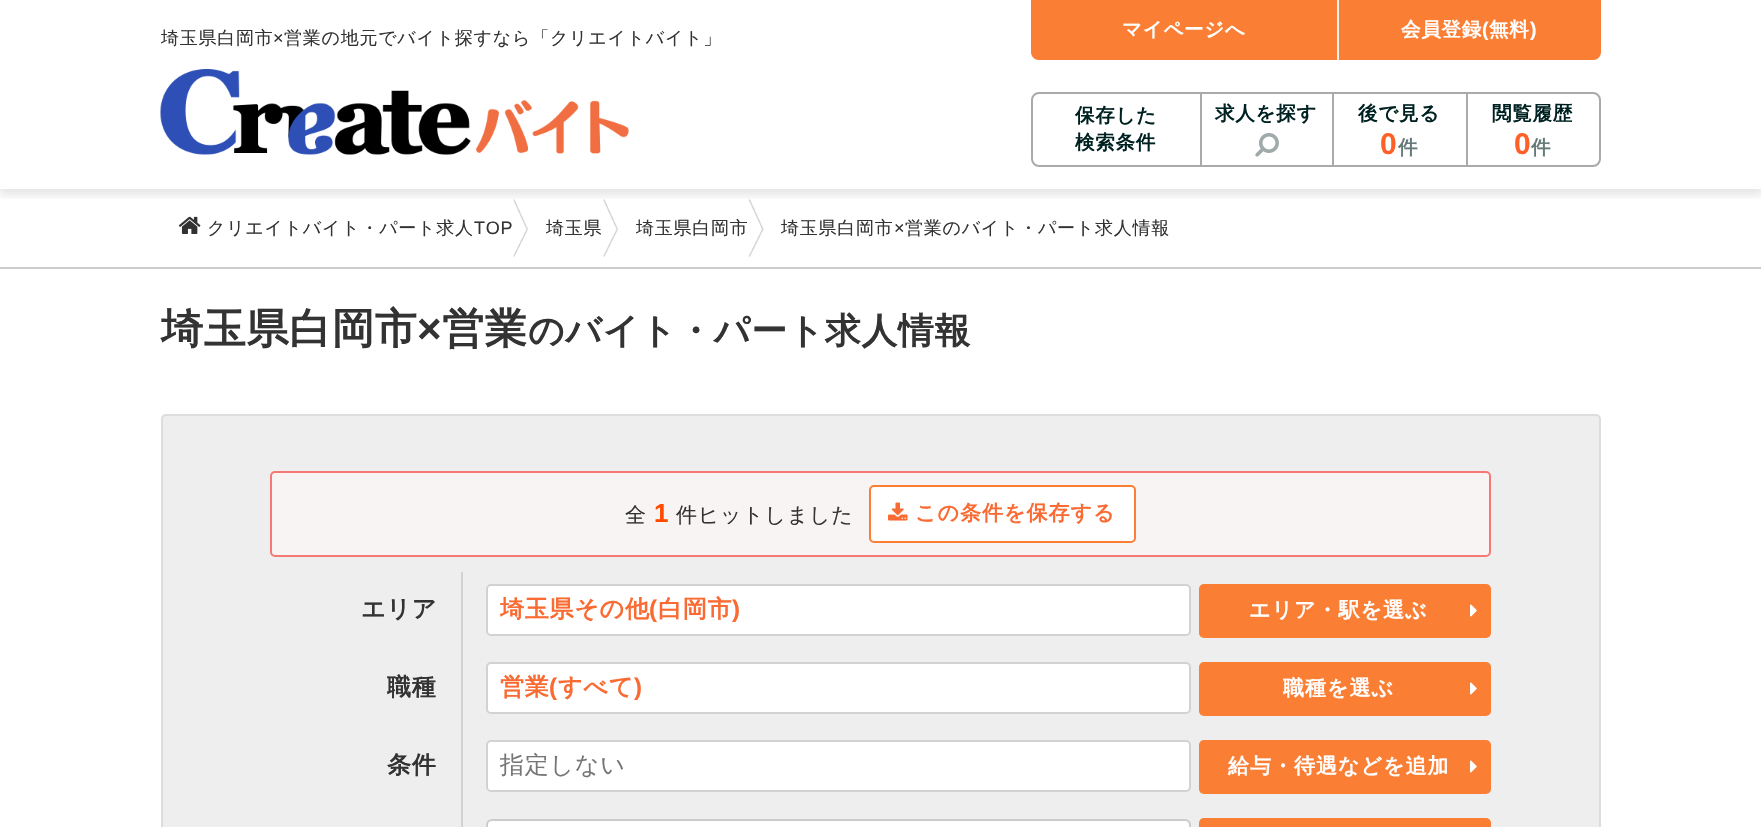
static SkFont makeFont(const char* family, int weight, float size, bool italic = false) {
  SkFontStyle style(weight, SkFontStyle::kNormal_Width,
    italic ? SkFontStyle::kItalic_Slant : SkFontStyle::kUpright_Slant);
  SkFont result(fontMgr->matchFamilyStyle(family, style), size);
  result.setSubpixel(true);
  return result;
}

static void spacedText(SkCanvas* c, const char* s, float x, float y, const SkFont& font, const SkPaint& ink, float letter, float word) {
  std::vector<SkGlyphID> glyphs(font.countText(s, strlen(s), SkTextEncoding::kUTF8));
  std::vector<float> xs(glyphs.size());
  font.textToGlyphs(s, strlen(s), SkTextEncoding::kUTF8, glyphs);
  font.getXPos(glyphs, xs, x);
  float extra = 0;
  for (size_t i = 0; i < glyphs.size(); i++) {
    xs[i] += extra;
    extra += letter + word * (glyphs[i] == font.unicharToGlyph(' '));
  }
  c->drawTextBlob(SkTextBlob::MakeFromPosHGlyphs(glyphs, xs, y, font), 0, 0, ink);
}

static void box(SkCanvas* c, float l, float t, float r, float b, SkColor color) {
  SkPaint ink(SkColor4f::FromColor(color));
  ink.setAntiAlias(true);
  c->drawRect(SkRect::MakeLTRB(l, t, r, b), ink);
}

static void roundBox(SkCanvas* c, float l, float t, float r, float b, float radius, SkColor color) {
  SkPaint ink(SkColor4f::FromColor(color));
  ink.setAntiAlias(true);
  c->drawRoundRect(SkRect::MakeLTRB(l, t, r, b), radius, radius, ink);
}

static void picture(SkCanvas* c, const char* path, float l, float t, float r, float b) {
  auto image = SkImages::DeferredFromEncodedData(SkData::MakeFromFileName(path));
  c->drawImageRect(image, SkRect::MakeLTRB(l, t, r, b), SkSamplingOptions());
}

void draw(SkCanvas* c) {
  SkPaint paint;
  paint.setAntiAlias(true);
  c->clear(0xffffffff);
  c->save();
  c->clipRect(SkRect::MakeLTRB(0, 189, 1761, 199));
  paint.setColor(0x1a000000);
  paint.setMaskFilter(SkMaskFilter::MakeBlur(kNormal_SkBlurStyle, 4.5f));
  c->drawRect(SkRect::MakeLTRB(-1, 3, 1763, 195), paint);
  paint.setMaskFilter(nullptr);
  c->restore();
  SkFont face1 = makeFont("WenQuanYi Zen Hei", 500, 18);
  paint.setColor(0xff333333);
  spacedText(c, "埼玉県白岡市", 161, 44, face1, paint, 0.75f, 0);
  SkFont face2 = makeFont("Liberation Sans", 400, 18);
  spacedText(c, "×", 273, 44, face2, paint, 0.75f, 0);
  spacedText(c, "営業の地元でバイト探すなら「クリエイトバイト」", 284, 44, face1, paint, 0.75f, 0);
  paint.setColor(0xfffa7e33);
  c->drawPath(SkPathBuilder().moveTo(1031, -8).lineTo(1601, -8).lineTo(1601, 52).cubicTo(1601, 56.5f, 1597.5f, 60, 1593, 60).lineTo(1039, 60).cubicTo(1034.5f, 60, 1031, 56.5f, 1031, 52).close().detach(), paint);
  box(c, 1337, 0, 1339, 60, 0xffeeeeee);
  SkFont face3 = makeFont("WenQuanYi Zen Hei", 700, 19.5f);
  paint.setColor(0xffffffff);
  spacedText(c, "マイページへ", 1122, 36, face3, paint, 0.75f, 0);
  spacedText(c, "会員登録", 1401, 36, face3, paint, 0.75f, 0);
  SkFont face4 = makeFont("Liberation Sans", 700, 19.5f);
  spacedText(c, "(", 1482, 36, face4, paint, 0.75f, 0);
  spacedText(c, "無料", 1489, 36, face3, paint, 0.75f, 0);
  spacedText(c, ")", 1530, 36, face4, paint, 0.75f, 0);
  paint.setStyle(SkPaint::kStroke_Style);
  paint.setStrokeWidth(2);
  paint.setColor(0xffaaaaaa);
  c->drawRoundRect(SkRect::MakeLTRB(1032, 93, 1600, 166), 7, 7, paint);
  box(c, 1200, 93, 1202, 165, 0xffaaaaaa);
  paint.setStyle(SkPaint::kFill_Style);
  paint.setColor(0xff002121);
  spacedText(c, "保存した", 1075, 122, face3, paint, 0.75f, 0);
  spacedText(c, "検索条件", 1075, 149, face3, paint, 0.75f, 0);
  box(c, 1332, 93, 1334, 165, 0xffaaaaaa);
  spacedText(c, "求人を探す", 1215, 120, face3, paint, 0.75f, 0);
  picture(c, "img_01.png", 1255, 133, 1279, 157);
  box(c, 1466, 93, 1468, 165, 0xffaaaaaa);
  spacedText(c, "後で見る", 1358, 120, face3, paint, 0.75f, 0);
  SkFont face5 = makeFont("Liberation Sans", 700, 30);
  paint.setColor(0xfffe6027);
  spacedText(c, "0", 1380, 154, face5, paint, 0.75f, 0);
  paint.setColor(0xff667a7a);
  spacedText(c, "件", 1398, 154, face3, paint, 0.75f, 0);
  paint.setColor(0xff002121);
  spacedText(c, "閲覧履歴", 1492, 120, face3, paint, 0.75f, 0);
  paint.setColor(0xfffe6027);
  spacedText(c, "0", 1514, 154, face5, paint, 0.75f, 0);
  paint.setColor(0xff667a7a);
  spacedText(c, "件", 1531, 154, face3, paint, 0.75f, 0);
  picture(c, "img_02.png", 160, 69, 629, 155);
  box(c, 0, 267, 1761, 269, 0xffcccccc);
  picture(c, "img_03.png", 513, 199, 528, 257);
  picture(c, "img_04.png", 178, 216, 201, 234);
  paint.setColor(0xff333333);
  spacedText(c, "クリエイトバイト・パート求人", 207, 234, face1, paint, 0.75f, 0);
  spacedText(c, "TOP", 474, 234, face2, paint, 0.75f, 0);
  picture(c, "img_05.png", 603, 199, 618, 257);
  spacedText(c, "埼玉県", 546, 234, face1, paint, 0.75f, 0);
  picture(c, "img_06.png", 748, 199, 764, 257);
  spacedText(c, "埼玉県白岡市", 636, 234, face1, paint, 0.75f, 0);
  spacedText(c, "埼玉県白岡市", 781, 234, face1, paint, 0.75f, 0);
  spacedText(c, "×", 894, 234, face2, paint, 0.75f, 0);
  spacedText(c, "営業のバイト・パート求人情報", 905, 234, face1, paint, 0.75f, 0);
  SkFont face6 = makeFont("WenQuanYi Zen Hei", 700, 42);
  spacedText(c, "埼玉県白岡市", 161, 343, face6, paint, 0.75f, 0);
  SkFont face7 = makeFont("Liberation Sans", 700, 42);
  spacedText(c, "×", 417, 343, face7, paint, 0.75f, 0);
  spacedText(c, "営業", 442, 343, face6, paint, 0.75f, 0);
  SkFont face8 = makeFont("WenQuanYi Zen Hei", 700, 35.75f);
  spacedText(c, "のバイト・パート求人情報", 528, 343, face8, paint, 0.75f, 0);
  paint.setColor(0xffeeeeee);
  c->drawRoundRect(SkRect::MakeLTRB(162, 415, 1600, 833), 4, 4, paint);
  paint.setStyle(SkPaint::kStroke_Style);
  paint.setColor(0xffdddddd);
  c->drawRoundRect(SkRect::MakeLTRB(162, 415, 1600, 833), 4, 4, paint);
  paint.setStyle(SkPaint::kFill_Style);
  paint.setColor(0xfff9f4f4);
  c->drawRoundRect(SkRect::MakeLTRB(271, 472, 1490, 556), 4, 4, paint);
  paint.setStyle(SkPaint::kStroke_Style);
  paint.setColor(0xfff57874);
  c->drawRoundRect(SkRect::MakeLTRB(271, 472, 1490, 556), 4, 4, paint);
  SkFont face9 = makeFont("WenQuanYi Zen Hei", 500, 21);
  paint.setStyle(SkPaint::kFill_Style);
  paint.setColor(0xff333333);
  spacedText(c, "全", 625, 522, face9, paint, 0.75f, 0);
  SkFont face10 = makeFont("Liberation Sans", 700, 26);
  paint.setColor(0xffff4b00);
  spacedText(c, "1", 654, 522, face10, paint, 0.75f, 0);
  paint.setColor(0xff333333);
  spacedText(c, "件ヒットしました", 676, 522, face9, paint, 0.75f, 0);
  paint.setColor(0xffffffff);
  c->drawRoundRect(SkRect::MakeLTRB(870, 486, 1135, 542), 4, 4, paint);
  paint.setStyle(SkPaint::kStroke_Style);
  paint.setColor(0xfffa7e33);
  c->drawRoundRect(SkRect::MakeLTRB(870, 486, 1135, 542), 4, 4, paint);
  picture(c, "img_07.png", 888, 502, 908, 521);
  SkFont face11 = makeFont("WenQuanYi Zen Hei", 700, 21);
  paint.setStyle(SkPaint::kFill_Style);
  paint.setColor(0xfffa6b33);
  spacedText(c, "この条件を保存する", 915, 520, face11, paint, 1, 0);
  box(c, 461, 572, 463, 827, 0xffd2d2d2);
  SkFont face12 = makeFont("WenQuanYi Zen Hei", 700, 24);
  paint.setColor(0xff333333);
  spacedText(c, "エリア", 361, 617, face12, paint, 0.75f, 0);
  paint.setColor(0xffffffff);
  c->drawRoundRect(SkRect::MakeLTRB(487, 585, 1190, 635), 4, 4, paint);
  paint.setStyle(SkPaint::kStroke_Style);
  paint.setColor(0xffd2d2d2);
  c->drawRoundRect(SkRect::MakeLTRB(487, 585, 1190, 635), 4, 4, paint);
  paint.setStyle(SkPaint::kFill_Style);
  paint.setColor(0xfffa6b33);
  spacedText(c, "埼玉県その他", 500, 617, face12, paint, 0.75f, 0);
  SkFont face13 = makeFont("Liberation Sans", 700, 24);
  spacedText(c, "(", 649, 617, face13, paint, 0.75f, 0);
  spacedText(c, "白岡市", 658, 617, face12, paint, 0.75f, 0);
  spacedText(c, ")", 732, 617, face13, paint, 0.75f, 0);
  roundBox(c, 1199, 584, 1491, 638, 5, 0xfffa7e33);
  paint.setColor(0xffffffff);
  spacedText(c, "エリア・駅を選ぶ", 1249, 617, face11, paint, 1, 0);
  picture(c, "img_08.png", 1470, 604, 1477, 617);
  paint.setColor(0xff333333);
  spacedText(c, "職種", 387, 695, face12, paint, 0.75f, 0);
  paint.setColor(0xffffffff);
  c->drawRoundRect(SkRect::MakeLTRB(487, 663, 1190, 713), 4, 4, paint);
  paint.setStyle(SkPaint::kStroke_Style);
  paint.setColor(0xffd2d2d2);
  c->drawRoundRect(SkRect::MakeLTRB(487, 663, 1190, 713), 4, 4, paint);
  paint.setStyle(SkPaint::kFill_Style);
  paint.setColor(0xfffa6b33);
  spacedText(c, "営業", 500, 695, face12, paint, 0.75f, 0);
  spacedText(c, "(", 549, 695, face13, paint, 0.75f, 0);
  spacedText(c, "すべて", 558, 695, face12, paint, 0.75f, 0);
  spacedText(c, ")", 634, 695, face13, paint, 0.75f, 0);
  roundBox(c, 1199, 662, 1491, 716, 5, 0xfffa7e33);
  paint.setColor(0xffffffff);
  spacedText(c, "職種を選ぶ", 1283, 695, face11, paint, 1, 0);
  picture(c, "img_08.png", 1470, 682, 1477, 695);
  paint.setColor(0xff333333);
  spacedText(c, "条件", 387, 773, face12, paint, 0.75f, 0);
  paint.setColor(0xffffffff);
  c->drawRoundRect(SkRect::MakeLTRB(487, 741, 1190, 791), 4, 4, paint);
  paint.setStyle(SkPaint::kStroke_Style);
  paint.setColor(0xffd2d2d2);
  c->drawRoundRect(SkRect::MakeLTRB(487, 741, 1190, 791), 4, 4, paint);
  SkFont face14 = makeFont("WenQuanYi Zen Hei", 500, 24);
  paint.setStyle(SkPaint::kFill_Style);
  paint.setColor(0xff767676);
  spacedText(c, "指定しない", 500, 773, face14, paint, 0.75f, 0);
  roundBox(c, 1199, 740, 1491, 794, 5, 0xfffa7e33);
  paint.setColor(0xffffffff);
  spacedText(c, "給与・待遇などを追加", 1228, 773, face11, paint, 1, 0);
  picture(c, "img_08.png", 1470, 760, 1477, 773);
  c->drawRoundRect(SkRect::MakeLTRB(487, 820, 1190, 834), 5, 5, paint);
  paint.setStyle(SkPaint::kStroke_Style);
  paint.setColor(0xffcccccc);
  c->drawRoundRect(SkRect::MakeLTRB(487, 820, 1190, 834), 5, 5, paint);
  roundBox(c, 1199, 818, 1491, 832, 5, 0xfffa7e33);
}
